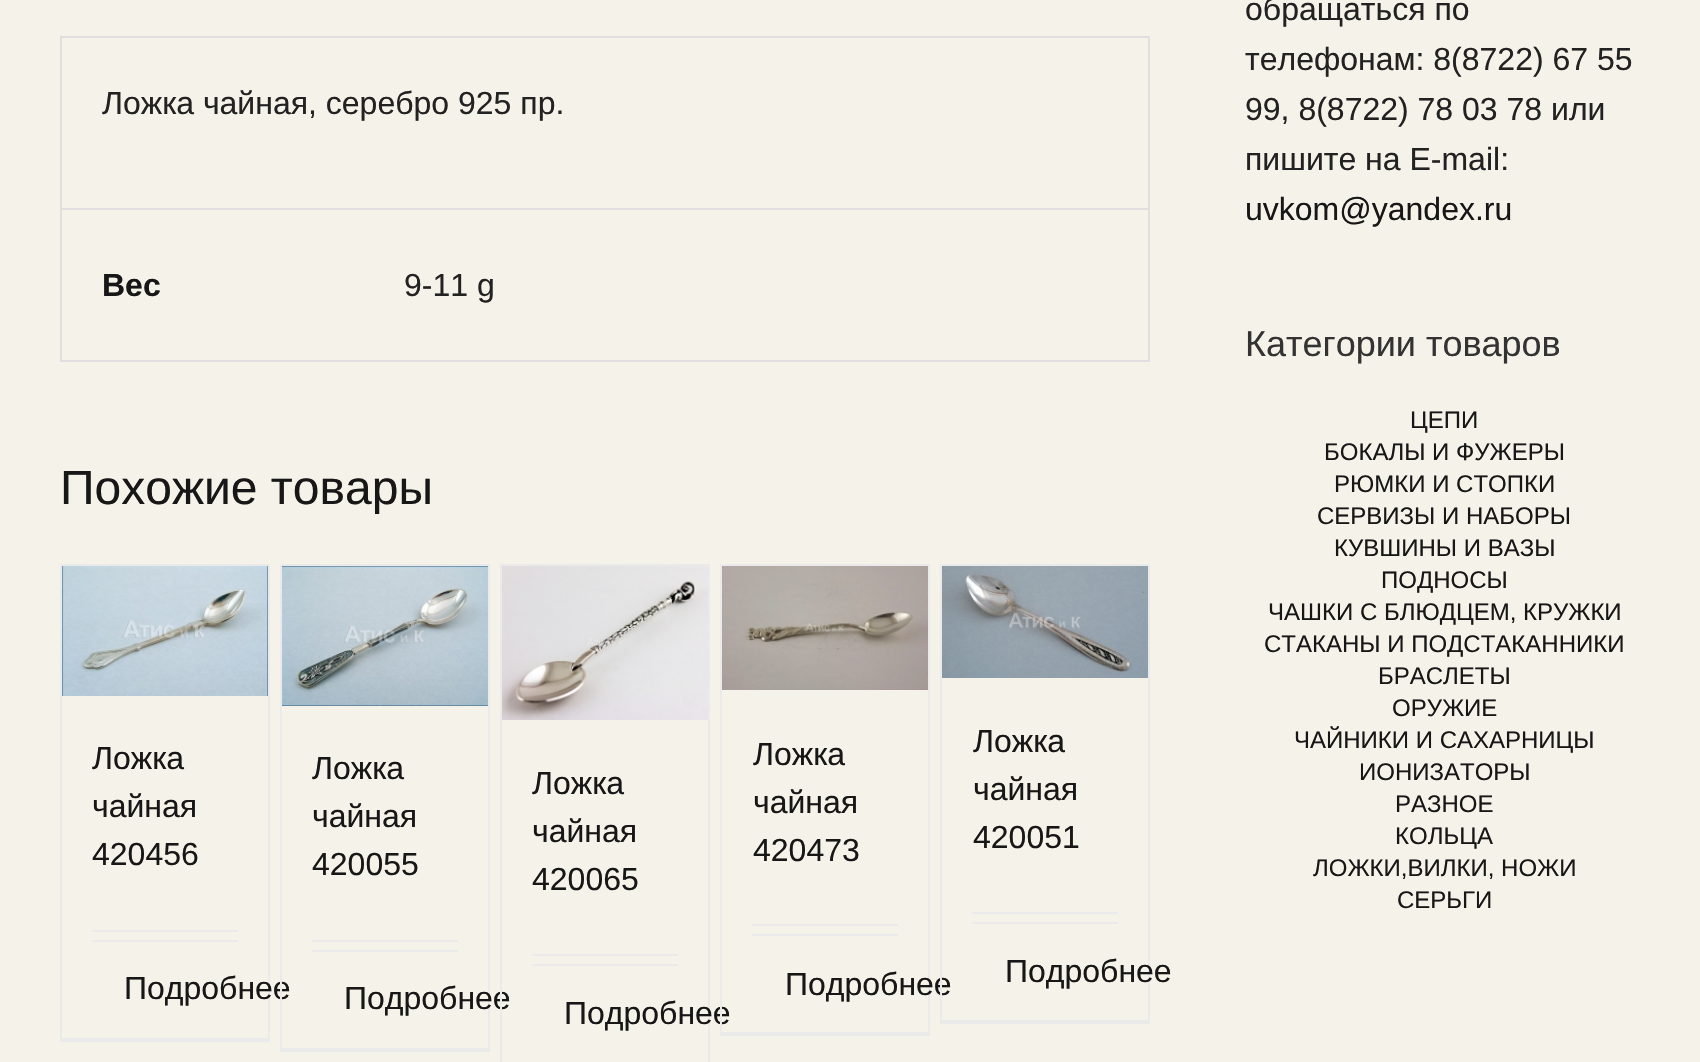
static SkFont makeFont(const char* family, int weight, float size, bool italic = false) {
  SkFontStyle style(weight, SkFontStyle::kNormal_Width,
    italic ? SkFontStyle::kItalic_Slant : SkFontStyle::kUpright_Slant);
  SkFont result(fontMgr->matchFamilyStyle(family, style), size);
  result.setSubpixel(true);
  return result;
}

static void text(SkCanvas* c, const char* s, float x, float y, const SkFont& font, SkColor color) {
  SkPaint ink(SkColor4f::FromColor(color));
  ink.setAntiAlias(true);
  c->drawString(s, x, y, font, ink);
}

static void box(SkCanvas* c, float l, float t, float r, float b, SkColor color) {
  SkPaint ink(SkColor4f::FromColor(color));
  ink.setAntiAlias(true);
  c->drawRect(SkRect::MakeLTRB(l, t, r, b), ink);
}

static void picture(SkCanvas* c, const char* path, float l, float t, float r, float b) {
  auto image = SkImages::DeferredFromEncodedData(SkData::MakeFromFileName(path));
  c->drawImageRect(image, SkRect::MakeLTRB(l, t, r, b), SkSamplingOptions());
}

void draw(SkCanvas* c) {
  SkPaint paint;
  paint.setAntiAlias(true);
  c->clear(0xfff5f2e9);
  box(c, 60, 36, 1150, 38, 0xffe0dede);
  box(c, 1148, 38, 1150, 362, 0xffe0dede);
  box(c, 60, 208, 1150, 210, 0xffe0dede);
  box(c, 60, 38, 62, 210, 0xffe0dede);
  SkFont face1 = makeFont("Liberation Sans", 400, 32);
  text(c, "Ложка чайная, серебро 925 пр.", 102, 114, face1, 0xff222222);
  box(c, 60, 360, 1150, 362, 0xffe0dede);
  box(c, 60, 210, 62, 362, 0xffe0dede);
  SkFont face2 = makeFont("Liberation Sans", 700, 32);
  text(c, "Вес", 102, 296, face2, 0xff171717);
  text(c, "9-11 g", 404, 296, face1, 0xff222222);
  SkFont face3 = makeFont("Liberation Sans", 400, 48);
  text(c, "Похожие товары", 60, 504, face3, 0xff171717);
  box(c, 60, 564, 270, 566, 0xffebeaea);
  box(c, 268, 564, 270, 1042, 0xffebeaea);
  box(c, 60, 1038, 270, 1042, 0xffebeaea);
  box(c, 60, 564, 62, 1042, 0xffebeaea);
  picture(c, "img_01.png", 62, 566, 268, 696);
  box(c, 92, 930, 238, 932, 0xffebeaea);
  text(c, "Ложка", 92, 769, face1, 0xff171717);
  text(c, "чайная", 92, 817, face1, 0xff171717);
  text(c, "420456", 92, 865, face1, 0xff171717);
  box(c, 92, 940, 238, 942, 0xffebeaea);
  text(c, "Подробнее", 124, 999, face1, 0xff171717);
  box(c, 280, 564, 490, 566, 0xffebeaea);
  box(c, 488, 564, 490, 1052, 0xffebeaea);
  box(c, 280, 1048, 490, 1052, 0xffebeaea);
  box(c, 280, 564, 282, 1052, 0xffebeaea);
  picture(c, "img_02.png", 282, 566, 488, 706);
  box(c, 312, 940, 458, 942, 0xffebeaea);
  text(c, "Ложка", 312, 779, face1, 0xff171717);
  text(c, "чайная", 312, 827, face1, 0xff171717);
  text(c, "420055", 312, 875, face1, 0xff171717);
  box(c, 312, 950, 458, 952, 0xffebeaea);
  text(c, "Подробнее", 344, 1009, face1, 0xff171717);
  box(c, 500, 564, 710, 566, 0xffebeaea);
  box(c, 708, 564, 710, 1062, 0xffebeaea);
  box(c, 500, 564, 502, 1062, 0xffebeaea);
  picture(c, "img_03.png", 502, 566, 708, 720);
  box(c, 532, 954, 678, 956, 0xffebeaea);
  text(c, "Ложка", 532, 794, face1, 0xff171717);
  text(c, "чайная", 532, 842, face1, 0xff171717);
  text(c, "420065", 532, 890, face1, 0xff171717);
  box(c, 532, 964, 678, 966, 0xffebeaea);
  text(c, "Подробнее", 564, 1024, face1, 0xff171717);
  box(c, 720, 564, 930, 566, 0xffebeaea);
  box(c, 928, 564, 930, 1036, 0xffebeaea);
  box(c, 720, 1032, 930, 1036, 0xffebeaea);
  box(c, 720, 564, 722, 1036, 0xffebeaea);
  picture(c, "img_04.png", 722, 566, 928, 690);
  box(c, 752, 924, 898, 926, 0xffebeaea);
  text(c, "Ложка", 753, 765, face1, 0xff171717);
  text(c, "чайная", 753, 813, face1, 0xff171717);
  text(c, "420473", 753, 861, face1, 0xff171717);
  box(c, 752, 934, 898, 936, 0xffebeaea);
  text(c, "Подробнее", 785, 995, face1, 0xff171717);
  box(c, 940, 564, 1150, 566, 0xffebeaea);
  box(c, 1148, 564, 1150, 1024, 0xffebeaea);
  box(c, 940, 1020, 1150, 1024, 0xffebeaea);
  box(c, 940, 564, 942, 1024, 0xffebeaea);
  picture(c, "img_05.png", 942, 566, 1148, 678);
  box(c, 972, 912, 1118, 914, 0xffebeaea);
  text(c, "Ложка", 973, 752, face1, 0xff171717);
  text(c, "чайная", 973, 800, face1, 0xff171717);
  text(c, "420051", 973, 848, face1, 0xff171717);
  box(c, 972, 922, 1118, 924, 0xffebeaea);
  text(c, "Подробнее", 1005, 982, face1, 0xff171717);
  text(c, "обращаться по", 1245, 20, face1, 0xff222222);
  text(c, "телефонам: 8(8722) 67 55", 1245, 70, face1, 0xff222222);
  text(c, "99, 8(8722) 78 03 78 или", 1245, 120, face1, 0xff222222);
  text(c, "пишите на E-mail:", 1245, 170, face1, 0xff222222);
  text(c, "uvkom@yandex.ru", 1245, 220, face1, 0xff171717);
  SkFont face4 = makeFont("Liberation Sans", 400, 36);
  text(c, "Категории товаров", 1245, 356, face4, 0xff333333);
  SkFont face5 = makeFont("Liberation Sans", 400, 24);
  text(c, "ЦЕПИ", 1410, 428, face5, 0xff171717);
  text(c, "БОКАЛЫ И ФУЖЕРЫ", 1324, 460, face5, 0xff171717);
  text(c, "РЮМКИ И СТОПКИ", 1334, 492, face5, 0xff171717);
  text(c, "СЕРВИЗЫ И НАБОРЫ", 1317, 524, face5, 0xff171717);
  text(c, "КУВШИНЫ И ВАЗЫ", 1334, 556, face5, 0xff171717);
  text(c, "ПОДНОСЫ", 1381, 588, face5, 0xff171717);
  text(c, "ЧАШКИ С БЛЮДЦЕМ, КРУЖКИ", 1268, 620, face5, 0xff171717);
  text(c, "СТАКАНЫ И ПОДСТАКАННИКИ", 1264, 652, face5, 0xff171717);
  text(c, "БРАСЛЕТЫ", 1378, 684, face5, 0xff171717);
  text(c, "ОРУЖИЕ", 1392, 716, face5, 0xff171717);
  text(c, "ЧАЙНИКИ И САХАРНИЦЫ", 1294, 748, face5, 0xff171717);
  text(c, "ИОНИЗАТОРЫ", 1359, 780, face5, 0xff171717);
  text(c, "РАЗНОЕ", 1395, 812, face5, 0xff171717);
  text(c, "КОЛЬЦА", 1395, 844, face5, 0xff171717);
  text(c, "ЛОЖКИ,ВИЛКИ, НОЖИ", 1313, 876, face5, 0xff171717);
  text(c, "СЕРЬГИ", 1397, 908, face5, 0xff171717);
}
